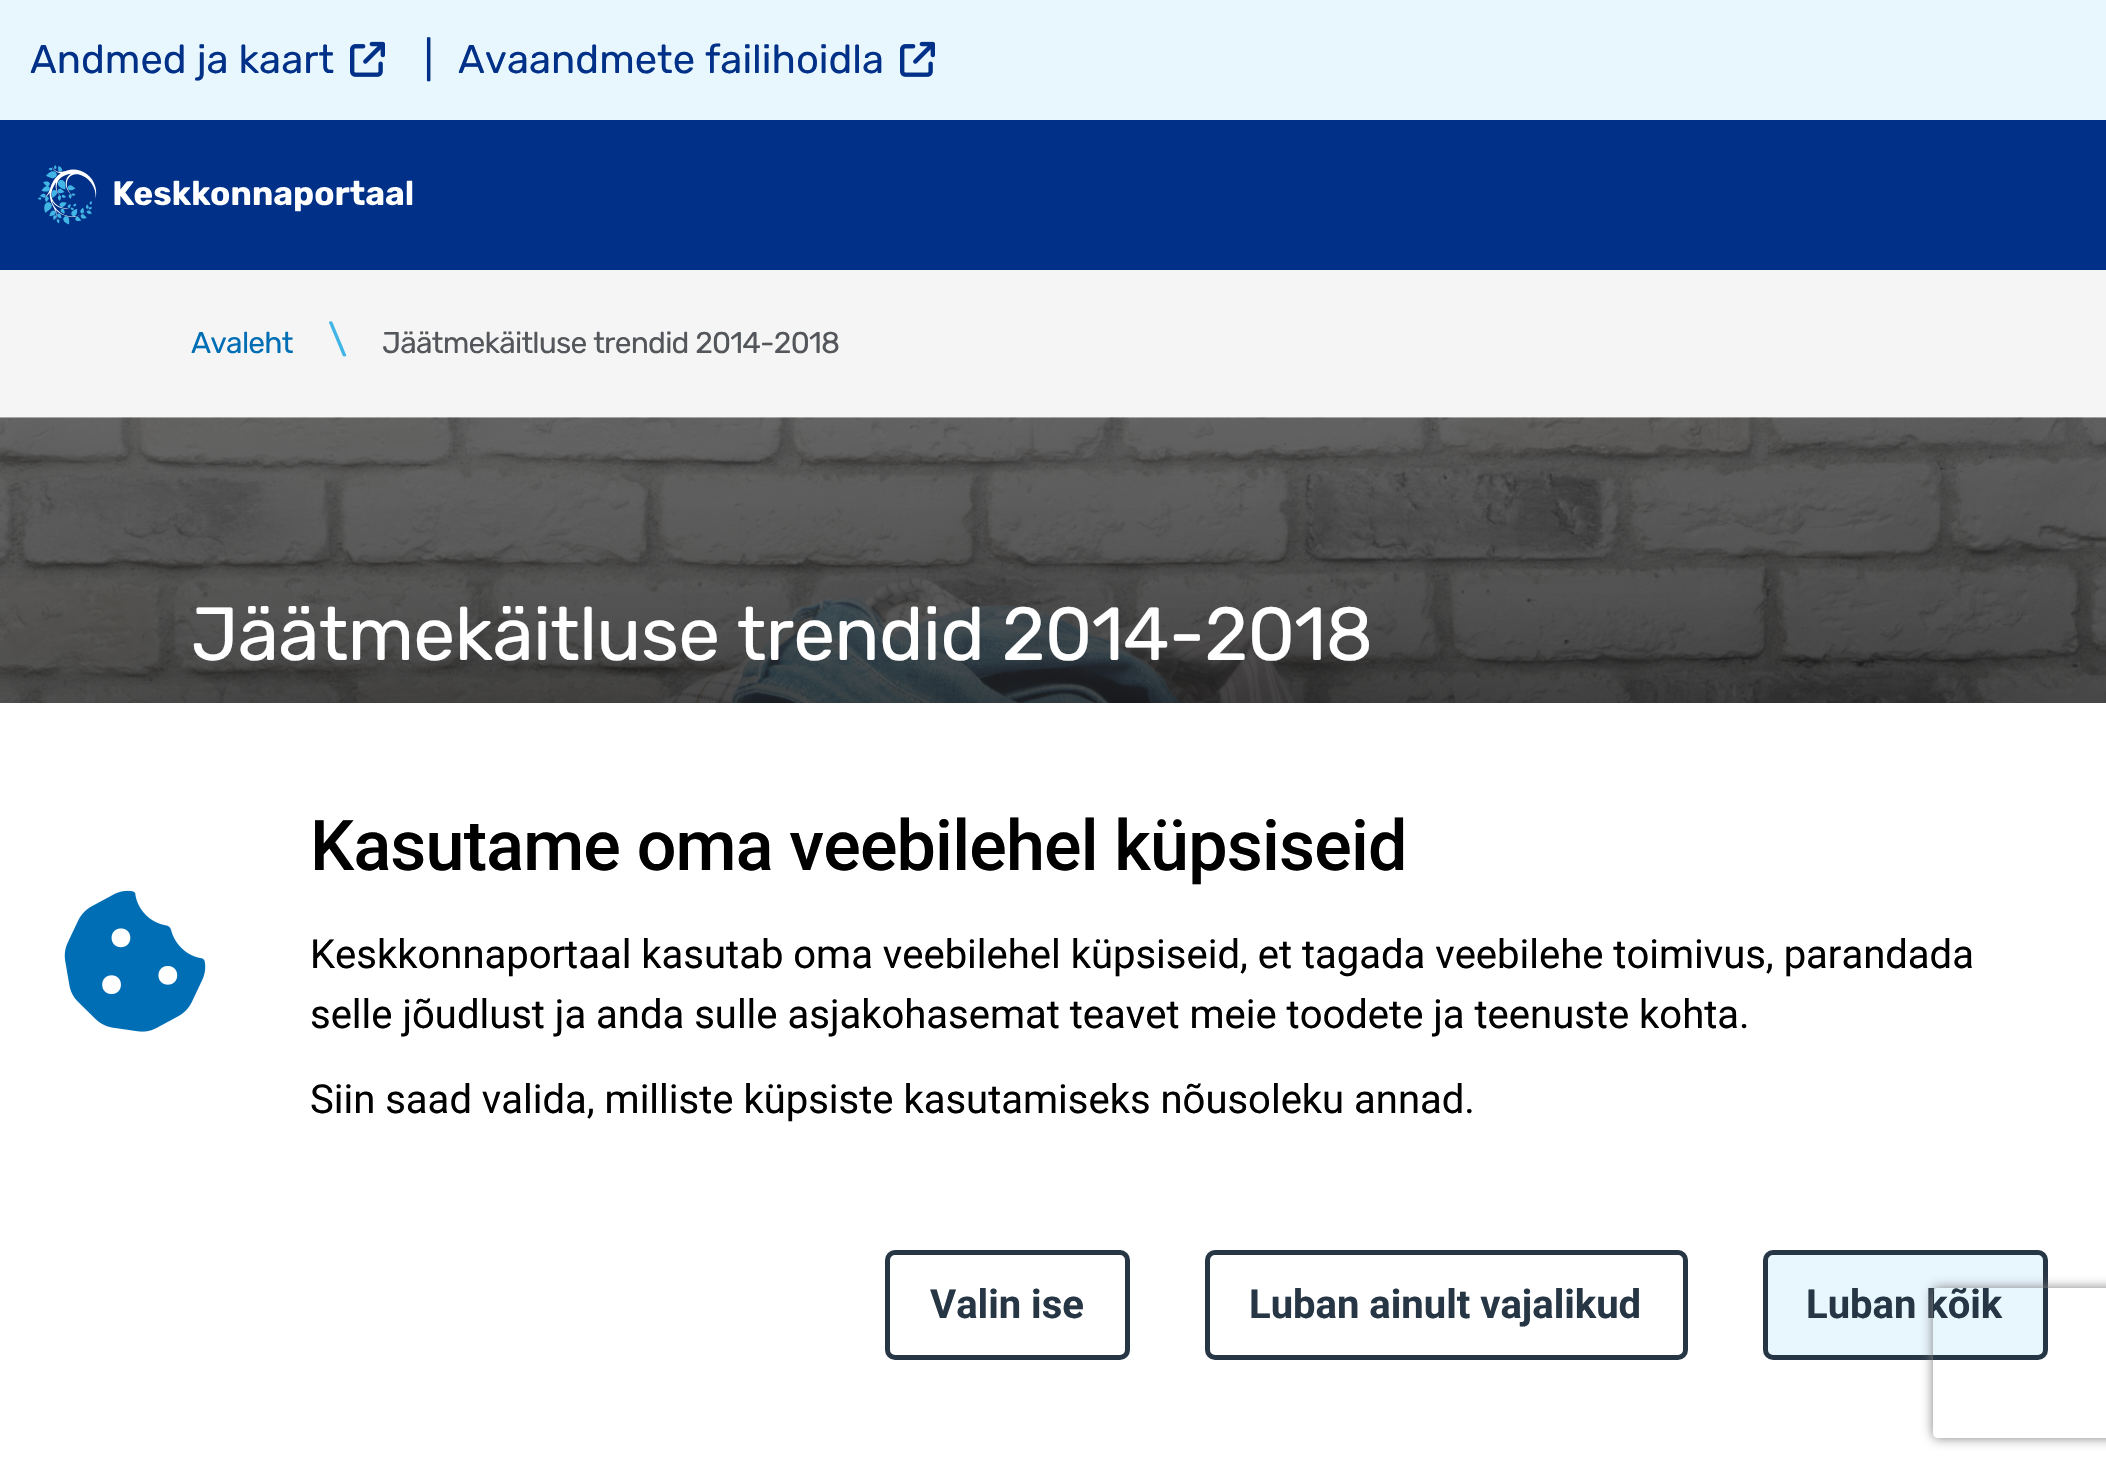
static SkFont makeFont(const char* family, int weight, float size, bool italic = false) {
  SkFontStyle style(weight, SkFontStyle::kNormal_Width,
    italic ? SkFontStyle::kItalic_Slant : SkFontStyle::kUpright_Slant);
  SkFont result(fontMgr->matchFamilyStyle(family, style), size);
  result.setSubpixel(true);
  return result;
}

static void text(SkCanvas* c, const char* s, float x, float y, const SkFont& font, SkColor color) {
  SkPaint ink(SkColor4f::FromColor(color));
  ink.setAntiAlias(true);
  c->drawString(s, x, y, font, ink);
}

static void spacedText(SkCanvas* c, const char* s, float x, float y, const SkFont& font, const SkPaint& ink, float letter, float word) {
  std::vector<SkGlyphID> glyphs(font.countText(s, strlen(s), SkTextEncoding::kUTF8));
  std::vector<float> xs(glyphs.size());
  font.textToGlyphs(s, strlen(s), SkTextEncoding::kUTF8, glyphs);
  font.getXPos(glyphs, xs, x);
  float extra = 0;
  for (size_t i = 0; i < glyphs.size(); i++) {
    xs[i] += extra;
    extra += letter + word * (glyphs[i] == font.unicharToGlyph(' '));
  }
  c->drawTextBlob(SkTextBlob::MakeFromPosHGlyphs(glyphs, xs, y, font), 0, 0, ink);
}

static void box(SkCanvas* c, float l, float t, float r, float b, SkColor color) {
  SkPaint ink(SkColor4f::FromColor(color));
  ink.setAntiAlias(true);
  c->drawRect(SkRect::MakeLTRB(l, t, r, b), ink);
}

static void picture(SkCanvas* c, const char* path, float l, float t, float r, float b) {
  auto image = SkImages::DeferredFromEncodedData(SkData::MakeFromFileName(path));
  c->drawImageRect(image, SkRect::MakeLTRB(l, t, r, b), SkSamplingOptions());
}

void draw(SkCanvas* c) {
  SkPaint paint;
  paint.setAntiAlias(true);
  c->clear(0xffe8f6fe);
  SkFont face1 = makeFont("Rubik", 400, 40);
  text(c, "Andmed ja kaart", 30, 73, face1, 0xff003087);
  picture(c, "img_01.png", 350, 41, 385, 77);
  text(c, "|", 424, 73, face1, 0xff003087);
  text(c, "Avaandmete failihoidla", 458, 73, face1, 0xff003087);
  picture(c, "img_01.png", 900, 41, 935, 77);
  box(c, 0, 270, 2106, 418, 0xfff5f5f5);
  picture(c, "img_03.png", 0, 417, 2106, 703);
  paint.setColor(0xbf000000);
  paint.setMaskFilter(SkMaskFilter::MakeBlur(kNormal_SkBlurStyle, 375));
  c->drawRect(SkRect::MakeLTRB(118, 790, 1990, 1325), paint);
  paint.setMaskFilter(nullptr);
  box(c, 0, 120, 2106, 270, 0xff003087);
  picture(c, "img_02.png", 38, 165, 413, 225);
  SkFont face2 = makeFont("Rubik", 400, 30);
  paint.setColor(0xff006eb5);
  spacedText(c, "Avaleht", 191, 353, face2, paint, -0.8f, 0);
  text(c, "\\", 328, 353, face1, 0xff41b6e6);
  paint.setColor(0xff53565a);
  spacedText(c, "Jäätmekäitluse trendid 2014-2018", 382, 353, face2, paint, -0.8f, 0);
  SkFont face3 = makeFont("Rubik", 400, 75);
  paint.setColor(0xffffffff);
  spacedText(c, "Jäätmekäitluse trendid 2014-2018", 191, 660, face3, paint, -0.8f, 0);
  box(c, 0, 703, 2106, 1472, 0xffffffff);
  picture(c, "img_04.png", 64, 890, 206, 1032);
  SkFont face4 = makeFont("Roboto", 500, 70);
  paint.setColor(0xff000000);
  spacedText(c, "Kasutame oma veebilehel küpsiseid", 310, 870, face4, paint, -0.8f, 0);
  SkFont face5 = makeFont("Roboto", 400, 40);
  text(c, "Keskkonnaportaal kasutab oma veebilehel küpsiseid, et tagada veebilehe toimivus, parandada", 310, 968, face5, 0xff000000);
  text(c, "selle jõudlust ja anda sulle asjakohasemat teavet meie toodete ja teenuste kohta.", 310, 1028, face5, 0xff000000);
  text(c, "Siin saad valida, milliste küpsiste kasutamiseks nõusoleku annad.", 310, 1113, face5, 0xff000000);
  paint.setStyle(SkPaint::kStroke_Style);
  paint.setStrokeWidth(5);
  paint.setColor(0xff273645);
  c->drawRoundRect(SkRect::MakeLTRB(887.5f, 1252.5f, 1127.5f, 1357.5f), 7.5f, 7.5f, paint);
  SkFont face6 = makeFont("Roboto", 700, 40);
  text(c, "Valin ise", 930, 1318, face6, 0xff273645);
  c->drawRoundRect(SkRect::MakeLTRB(1207.5f, 1252.5f, 1685.5f, 1357.5f), 7.5f, 7.5f, paint);
  text(c, "Luban ainult vajalikud", 1249, 1318, face6, 0xff273645);
  paint.setStyle(SkPaint::kFill_Style);
  paint.setColor(0xffe8f6fe);
  c->drawRoundRect(SkRect::MakeLTRB(1765.5f, 1252.5f, 2045.5f, 1357.5f), 7.5f, 7.5f, paint);
  paint.setStyle(SkPaint::kStroke_Style);
  paint.setColor(0xff273645);
  c->drawRoundRect(SkRect::MakeLTRB(1765.5f, 1252.5f, 2045.5f, 1357.5f), 7.5f, 7.5f, paint);
  text(c, "Luban kõik", 1806, 1318, face6, 0xff273645);
  c->save();
  c->clipPath(SkPathBuilder(SkPathFillType::kEvenOdd).moveTo(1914, 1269).lineTo(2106, 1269).lineTo(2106, 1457).lineTo(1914, 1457).close().moveTo(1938, 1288).lineTo(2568, 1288).cubicTo(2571, 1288, 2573, 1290, 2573, 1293).lineTo(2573, 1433).cubicTo(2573, 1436, 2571, 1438, 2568, 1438).lineTo(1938, 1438).cubicTo(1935, 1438, 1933, 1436, 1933, 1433).lineTo(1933, 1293).cubicTo(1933, 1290, 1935, 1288, 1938, 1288).close().detach(), true);
  paint.setStyle(SkPaint::kFill_Style);
  paint.setColor(0xff808080);
  paint.setMaskFilter(SkMaskFilter::MakeBlur(kNormal_SkBlurStyle, 6));
  c->drawRoundRect(SkRect::MakeLTRB(1933, 1288, 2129, 1438), 5, 5, paint);
  paint.setMaskFilter(nullptr);
  c->restore();
}
